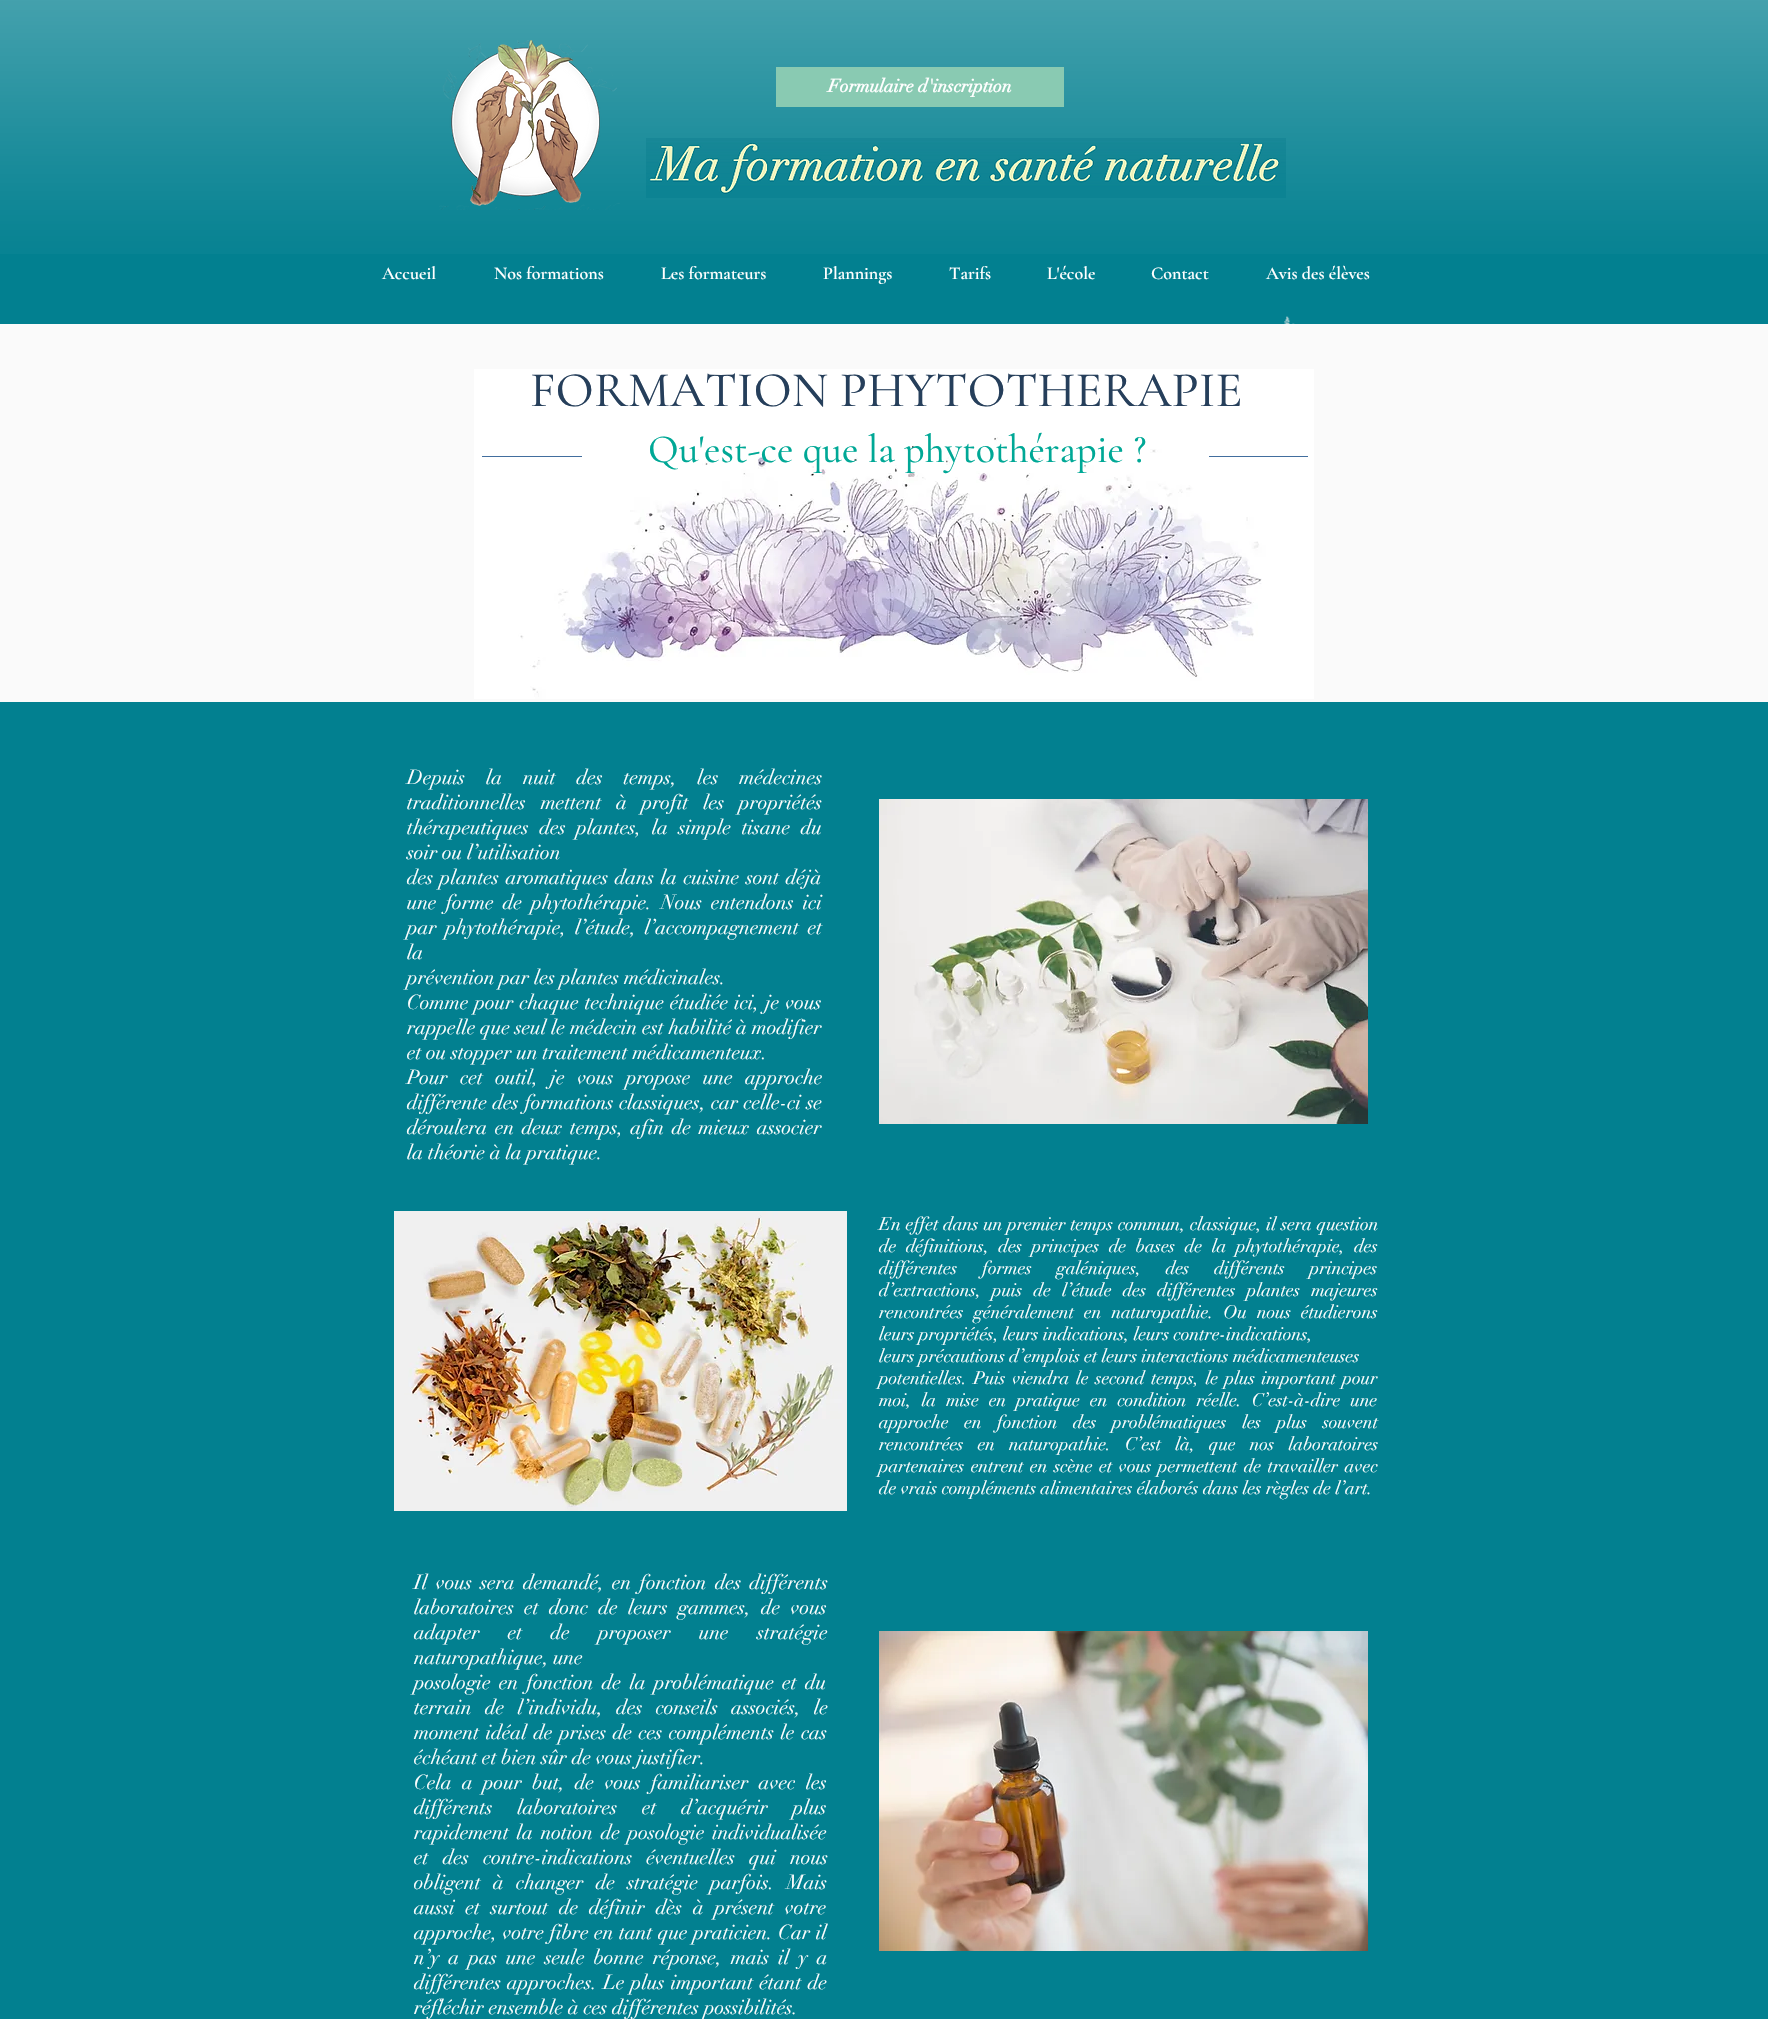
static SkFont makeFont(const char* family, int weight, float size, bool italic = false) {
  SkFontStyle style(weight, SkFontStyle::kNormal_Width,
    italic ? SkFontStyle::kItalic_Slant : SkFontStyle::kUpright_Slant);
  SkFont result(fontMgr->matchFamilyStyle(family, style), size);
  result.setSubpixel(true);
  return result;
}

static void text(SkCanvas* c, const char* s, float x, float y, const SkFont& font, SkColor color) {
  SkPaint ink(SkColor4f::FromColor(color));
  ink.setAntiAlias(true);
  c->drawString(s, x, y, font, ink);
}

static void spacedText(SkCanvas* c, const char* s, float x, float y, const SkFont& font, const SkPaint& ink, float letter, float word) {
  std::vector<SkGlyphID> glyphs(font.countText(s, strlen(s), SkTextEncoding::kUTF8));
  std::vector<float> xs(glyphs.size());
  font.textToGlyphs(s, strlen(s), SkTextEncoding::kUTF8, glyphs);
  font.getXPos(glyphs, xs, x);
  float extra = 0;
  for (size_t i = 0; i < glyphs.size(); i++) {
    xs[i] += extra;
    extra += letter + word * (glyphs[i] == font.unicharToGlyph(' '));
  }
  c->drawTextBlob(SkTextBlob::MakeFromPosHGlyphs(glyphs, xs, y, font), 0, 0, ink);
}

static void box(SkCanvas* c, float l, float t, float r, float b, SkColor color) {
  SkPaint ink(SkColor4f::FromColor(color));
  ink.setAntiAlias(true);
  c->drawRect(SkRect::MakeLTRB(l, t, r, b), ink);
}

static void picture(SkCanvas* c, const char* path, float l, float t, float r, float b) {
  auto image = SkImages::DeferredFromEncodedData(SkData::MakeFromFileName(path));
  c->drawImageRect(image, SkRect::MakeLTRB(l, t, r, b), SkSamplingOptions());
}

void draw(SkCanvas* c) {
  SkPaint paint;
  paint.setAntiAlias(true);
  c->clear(0xff028090);
  picture(c, "img_01.png", 0, 0, 1768, 254);
  picture(c, "img_02.png", 439, 40, 620, 210);
  box(c, 776, 67, 1064, 107, 0xff89cab2);
  SkFont face1 = makeFont("didot", 700, 18);
  text(c, "Formulaire d'inscription", 828, 92, face1, 0xffffffff);
  picture(c, "img_03.png", 646, 138, 1286, 198);
  SkFont face2 = makeFont("Cormorant Garamond", 600, 18);
  text(c, "Accueil", 382, 279, face2, 0xffffffff);
  text(c, "Nos formations", 494, 279, face2, 0xffffffff);
  text(c, "Les formateurs", 661, 279, face2, 0xffffffff);
  text(c, "Plannings", 823, 279, face2, 0xffffffff);
  text(c, "Tarifs", 949, 279, face2, 0xffffffff);
  text(c, "L'école", 1047, 279, face2, 0xffffffff);
  text(c, "Contact", 1151, 279, face2, 0xffffffff);
  text(c, "Avis des élèves", 1266, 279, face2, 0xffffffff);
  picture(c, "img_04.png", 1284, 316, 1295, 324);
  box(c, 0, 324, 1768, 702, 0xfffafafa);
  picture(c, "img_05.png", 474, 369, 1314, 699);
  SkFont face3 = makeFont("Cormorant Garamond", 500, 50);
  text(c, "FORMATION PHYTOTHERAPIE", 530, 406, face3, 0xff263f5b);
  box(c, 482, 456, 582, 457, 0xff426e9e);
  SkFont face4 = makeFont("Cormorant Garamond", 500, 40);
  text(c, "Qu'est-ce que la phytothérapie ?", 648, 462, face4, 0xff00a896);
  box(c, 1209, 456, 1308, 457, 0xff426e9e);
  SkFont face5 = makeFont("didot", 400, 20);
  paint.setColor(0xffffffff);
  spacedText(c, "Depuis la nuit des temps, les médecines", 407, 784, face5, paint, 0, 16);
  spacedText(c, "traditionnelles mettent à profit les propriétés", 407, 809, face5, paint, 0, 10);
  spacedText(c, "thérapeutiques des plantes, la simple tisane du", 407, 834, face5, paint, 0, 5.75f);
  text(c, "soir ou l’utilisation", 407, 859, face5, 0xffffffff);
  spacedText(c, "des plantes aromatiques dans la cuisine sont déjà", 407, 884, face5, paint, 0, 1.75f);
  spacedText(c, "une forme de phytothérapie. Nous entendons ici", 407, 909, face5, paint, 0, 4.25f);
  spacedText(c, "par phytothérapie, l’étude, l’accompagnement et", 407, 934, face5, paint, 0, 4);
  text(c, "la", 407, 959, face5, 0xffffffff);
  text(c, "prévention par les plantes médicinales.", 407, 984, face5, 0xffffffff);
  spacedText(c, "Comme pour chaque technique étudiée ici, je vous", 407, 1009, face5, paint, 0, 1.25f);
  text(c, "rappelle que seul le médecin est habilité à modifier", 407, 1034, face5, 0xffffffff);
  text(c, "et ou stopper un traitement médicamenteux.", 407, 1059, face5, 0xffffffff);
  spacedText(c, "Pour cet outil, je vous propose une approche", 407, 1084, face5, paint, 0, 7.75f);
  spacedText(c, "différente des formations classiques, car celle-ci se", 407, 1109, face5, paint, 0, 0.75f);
  spacedText(c, "déroulera en deux temps, afin de mieux associer", 407, 1134, face5, paint, 0, 2.75f);
  text(c, "la théorie à la pratique.", 407, 1159, face5, 0xffffffff);
  picture(c, "img_06.png", 879, 799, 1368, 1124);
  picture(c, "img_07.png", 394, 1211, 847, 1511);
  SkFont face6 = makeFont("didot", 400, 18);
  spacedText(c, "En effet dans un premier temps commun, classique, il sera question", 879, 1230, face6, paint, 0, 0.5f);
  spacedText(c, "de définitions, des principes de bases de la phytothérapie, des", 879, 1252, face6, paint, 0, 5.25f);
  spacedText(c, "différentes formes galéniques, des différents principes", 879, 1274, face6, paint, 0, 20.5f);
  spacedText(c, "d’extractions, puis de l’étude des différentes plantes majeures", 879, 1296, face6, paint, 0, 6.75f);
  spacedText(c, "rencontrées généralement en naturopathie. Ou nous étudierons", 879, 1318, face6, paint, 0, 5.75f);
  text(c, "leurs propriétés, leurs indications, leurs contre-indications,", 879, 1340, face6, 0xffffffff);
  text(c, "leurs précautions d’emplois et leurs interactions médicamenteuses", 879, 1362, face6, 0xffffffff);
  spacedText(c, "potentielles. Puis viendra le second temps, le plus important pour", 879, 1384, face6, paint, 0, 2.25f);
  spacedText(c, "moi, la mise en pratique en condition réelle. C’est-à-dire une", 879, 1406, face6, paint, 0, 5.75f);
  spacedText(c, "approche en fonction des problématiques les plus souvent", 879, 1428, face6, paint, 0, 11.25f);
  spacedText(c, "rencontrées en naturopathie. C’est là, que nos laboratoires", 879, 1450, face6, paint, 0, 9.75f);
  spacedText(c, "partenaires entrent en scène et vous permettent de travailler avec", 879, 1472, face6, paint, 0, 2.25f);
  text(c, "de vrais compléments alimentaires élaborés dans les règles de l’art.", 879, 1494, face6, 0xffffffff);
  spacedText(c, "Il vous sera demandé, en fonction des différents", 414, 1589, face5, paint, 0, 3.5f);
  spacedText(c, "laboratoires et donc de leurs gammes, de vous", 414, 1614, face5, paint, 0, 5.5f);
  spacedText(c, "adapter et de proposer une stratégie", 414, 1639, face5, paint, 0, 23.5f);
  text(c, "naturopathique, une", 414, 1664, face5, 0xffffffff);
  spacedText(c, "posologie en fonction de la problématique et du", 414, 1689, face5, paint, 0, 3.5f);
  spacedText(c, "terrain de l’individu, des conseils associés, le", 414, 1714, face5, paint, 0, 8.5f);
  spacedText(c, "moment idéal de prises de ces compléments le cas", 414, 1739, face5, paint, 0, 1.75f);
  text(c, "échéant et bien sûr de vous justifier.", 414, 1764, face5, 0xffffffff);
  spacedText(c, "Cela a pour but, de vous familiariser avec les", 414, 1789, face5, paint, 0, 5.5f);
  spacedText(c, "différents laboratoires et d’acquérir plus", 414, 1814, face5, paint, 0, 20);
  spacedText(c, "rapidement la notion de posologie individualisée", 414, 1839, face5, paint, 0, 3);
  spacedText(c, "et des contre-indications éventuelles qui nous", 414, 1864, face5, paint, 0, 9.5f);
  spacedText(c, "obligent à changer de stratégie parfois. Mais", 414, 1889, face5, paint, 0, 7.5f);
  spacedText(c, "aussi et surtout de définir dès à présent votre", 414, 1914, face5, paint, 0, 6);
  spacedText(c, "approche, votre fibre en tant que praticien. Car il", 414, 1939, face5, paint, 0, 0.75f);
  spacedText(c, "n’y a pas une seule bonne réponse, mais il y a", 414, 1964, face5, paint, 0, 4.25f);
  text(c, "différentes", 414, 1989, face5, 0xffffffff);
  spacedText(c, "approches. Le plus important étant de", 507, 1989, face5, paint, 0, 1.5f);
  text(c, "réfléchir ensemble à ces différentes possibilités.", 414, 2014, face5, 0xffffffff);
  picture(c, "img_08.png", 879, 1631, 1368, 1951);
}
